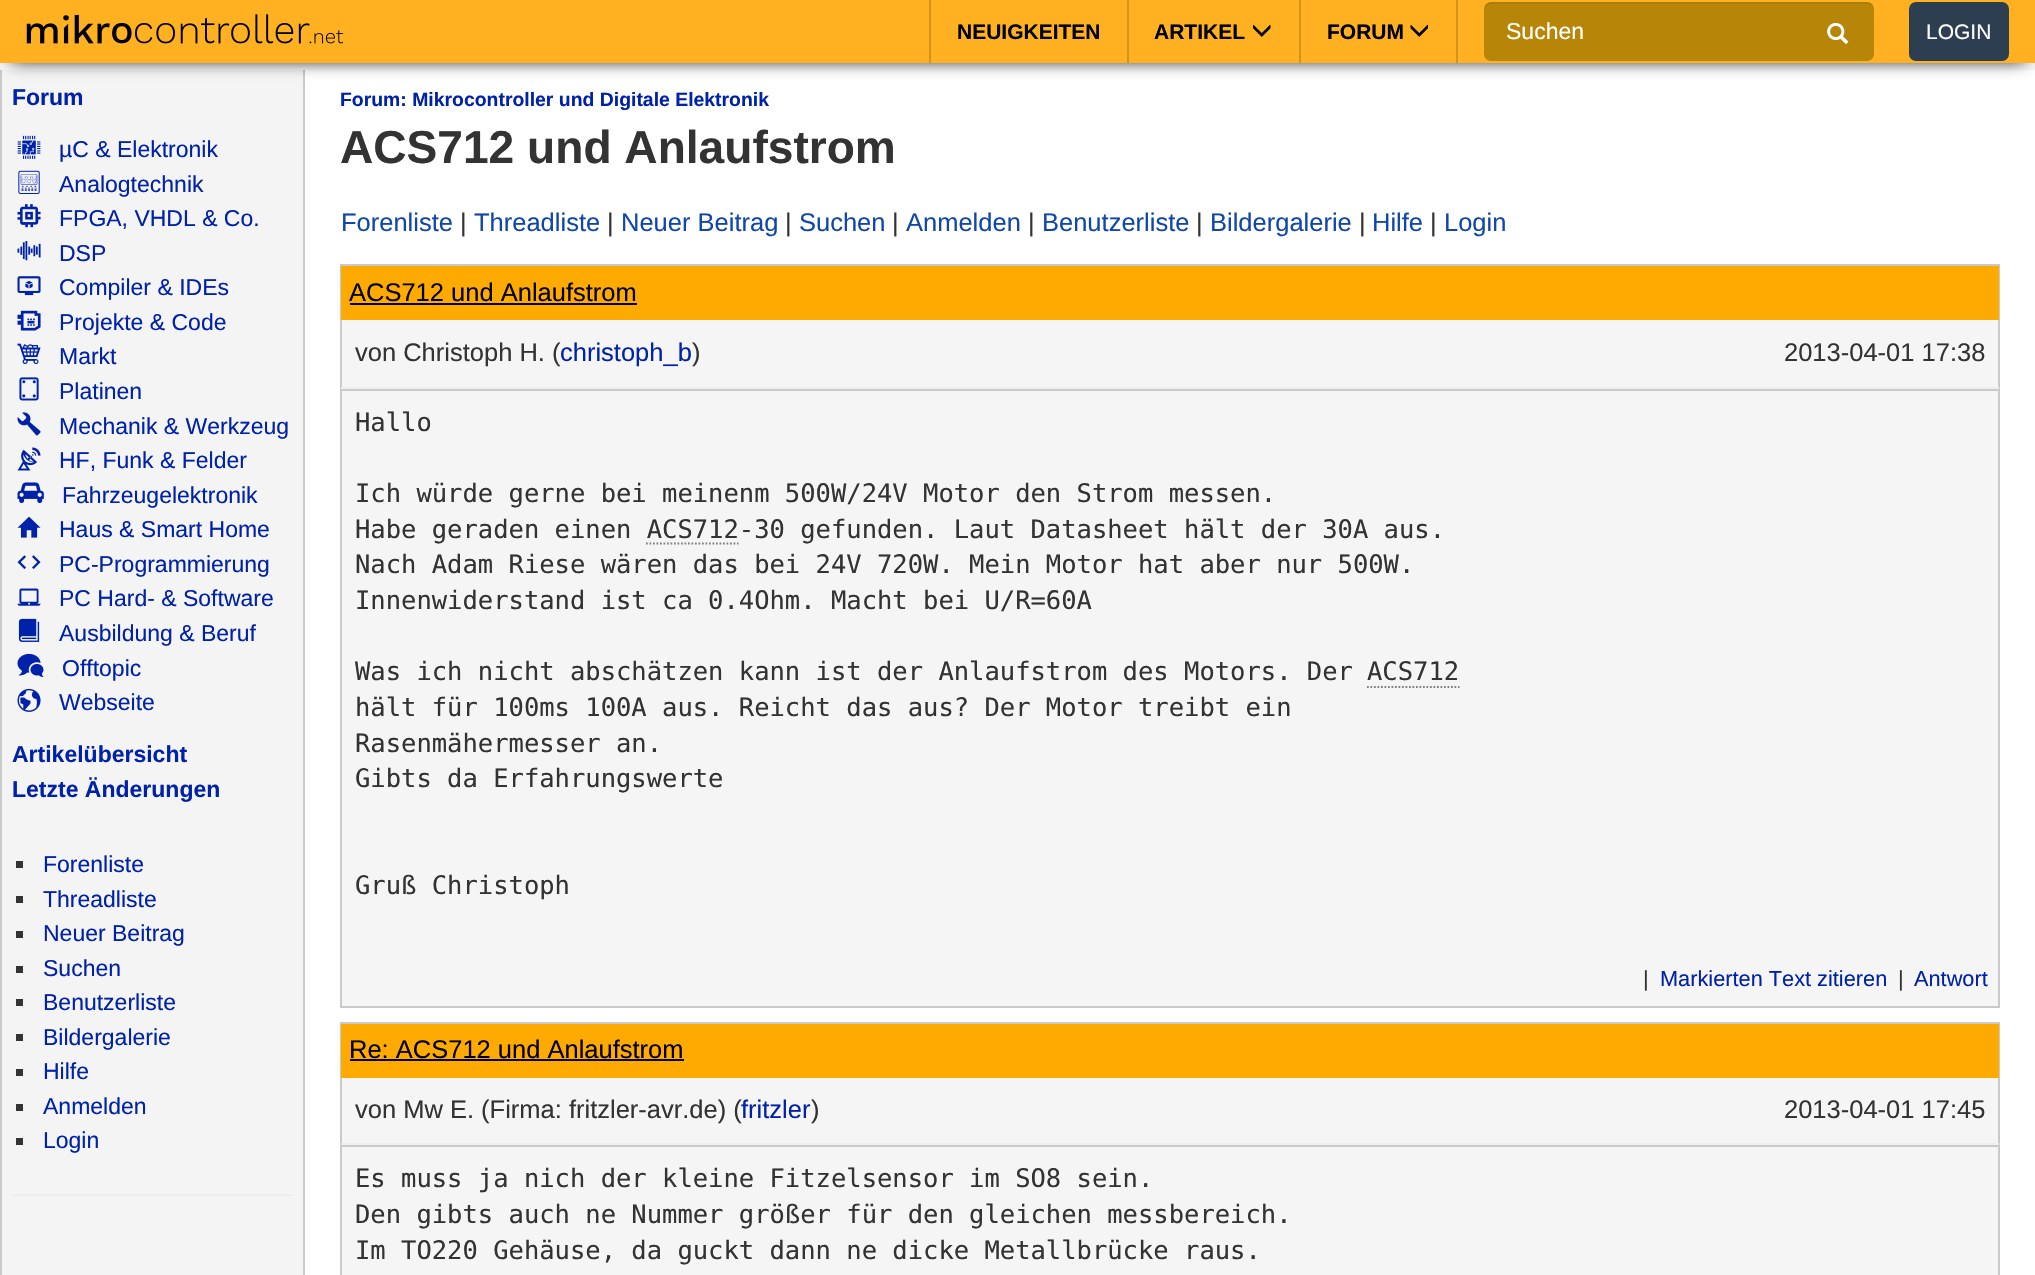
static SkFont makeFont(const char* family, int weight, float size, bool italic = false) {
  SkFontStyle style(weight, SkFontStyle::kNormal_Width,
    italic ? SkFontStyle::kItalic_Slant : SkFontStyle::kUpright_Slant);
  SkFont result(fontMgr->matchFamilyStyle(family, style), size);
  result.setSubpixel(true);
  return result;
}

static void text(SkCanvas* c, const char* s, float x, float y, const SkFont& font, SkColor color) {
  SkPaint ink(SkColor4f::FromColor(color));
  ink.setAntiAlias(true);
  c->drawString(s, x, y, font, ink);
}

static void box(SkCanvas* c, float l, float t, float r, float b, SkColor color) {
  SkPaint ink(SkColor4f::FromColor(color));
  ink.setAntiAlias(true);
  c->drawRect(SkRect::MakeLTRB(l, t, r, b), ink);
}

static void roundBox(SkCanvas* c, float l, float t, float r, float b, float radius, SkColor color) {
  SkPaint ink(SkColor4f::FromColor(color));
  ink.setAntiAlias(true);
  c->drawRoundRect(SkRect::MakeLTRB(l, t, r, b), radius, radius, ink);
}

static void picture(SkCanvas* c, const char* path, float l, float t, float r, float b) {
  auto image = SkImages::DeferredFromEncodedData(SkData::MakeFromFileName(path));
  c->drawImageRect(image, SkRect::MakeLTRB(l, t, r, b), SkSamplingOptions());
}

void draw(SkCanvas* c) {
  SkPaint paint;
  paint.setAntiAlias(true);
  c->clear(0xfff8f8f8);
  box(c, 2, 70, 303, 1275, 0xfff4f4f4);
  box(c, 303, 70, 305, 1275, 0xffcacaca);
  box(c, 0, 70, 2, 1275, 0xffcacaca);
  box(c, 305, 70, 2035, 1275, 0xffffffff);
  paint.setColor(0xff000000);
  paint.setMaskFilter(SkMaskFilter::MakeBlur(kNormal_SkBlurStyle, 9));
  c->drawRect(SkRect::MakeLTRB(11, 18, 2025, 60), paint);
  paint.setMaskFilter(nullptr);
  box(c, 0, 0, 2035, 63, 0xffffb122);
  picture(c, "img_01.png", 26, 14, 344, 44);
  box(c, 1127, 0, 1129, 63, 0xffd4931c);
  box(c, 929, 0, 931, 63, 0xffd4931c);
  SkFont face1 = makeFont("Liberation Sans", 700, 21);
  text(c, "NEUIGKEITEN", 957, 39, face1, 0xff000000);
  box(c, 1299, 0, 1301, 63, 0xffd4931c);
  text(c, "ARTIKEL", 1154, 39, face1, 0xff000000);
  picture(c, "img_02.png", 1253, 24, 1271, 37);
  box(c, 1456, 0, 1458, 63, 0xffd4931c);
  text(c, "FORUM", 1327, 39, face1, 0xff000000);
  picture(c, "img_03.png", 1410, 24, 1428, 37);
  roundBox(c, 1484, 2, 1874, 61, 7, 0xffb78508);
  paint.setColor(0x12000000);
  c->drawPath(SkPathBuilder().moveTo(1491, 4).lineTo(1867, 4).cubicTo(1871, 4, 1874, 7, 1874, 10).cubicTo(1874, 6, 1872, 2, 1867, 2).lineTo(1491, 2).cubicTo(1486, 2, 1484, 6, 1484, 10).cubicTo(1484, 7, 1487, 4, 1491, 4).close().detach(), paint);
  SkFont face2 = makeFont("Liberation Sans", 400, 23);
  text(c, "Suchen", 1506, 39, face2, 0xffffffff);
  picture(c, "img_04.png", 1827, 22, 1849, 44);
  roundBox(c, 1909, 2, 2009, 61, 7, 0xff2c3e50);
  SkFont face3 = makeFont("Liberation Sans", 400, 21);
  text(c, "LOGIN", 1926, 39, face3, 0xffffffff);
  SkFont face4 = makeFont("Liberation Sans", 700, 23);
  text(c, "Forum", 12, 105, face4, 0xff0022aa);
  picture(c, "img_05.png", 17, 135, 41, 159);
  text(c, "µC & Elektronik", 59, 157, face2, 0xff0022aa);
  picture(c, "img_06.png", 18, 170, 40, 194);
  text(c, "Analogtechnik", 59, 192, face2, 0xff0022aa);
  picture(c, "img_07.png", 17, 204, 41, 228);
  text(c, "FPGA, VHDL & Co.", 59, 226, face2, 0xff0022aa);
  picture(c, "img_08.png", 17, 241, 41, 261);
  text(c, "DSP", 59, 261, face2, 0xff0022aa);
  picture(c, "img_09.png", 17, 276, 41, 296);
  text(c, "Compiler & IDEs", 59, 295, face2, 0xff0022aa);
  picture(c, "img_10.png", 17, 310, 41, 331);
  text(c, "Projekte & Code", 59, 330, face2, 0xff0022aa);
  picture(c, "img_11.png", 17, 343, 41, 364);
  text(c, "Markt", 59, 364, face2, 0xff0022aa);
  picture(c, "img_12.png", 19, 377, 39, 401);
  text(c, "Platinen", 59, 399, face2, 0xff0022aa);
  picture(c, "img_13.png", 17, 412, 41, 436);
  text(c, "Mechanik & Werkzeug", 59, 434, face2, 0xff0022aa);
  picture(c, "img_14.png", 17, 447, 41, 471);
  text(c, "HF, Funk & Felder", 59, 468, face2, 0xff0022aa);
  picture(c, "img_15.png", 17, 482, 44, 504);
  text(c, "Fahrzeugelektronik", 62, 503, face2, 0xff0022aa);
  picture(c, "img_16.png", 17, 516, 41, 538);
  text(c, "Haus & Smart Home", 59, 537, face2, 0xff0022aa);
  picture(c, "img_17.png", 17, 555, 41, 569);
  text(c, "PC-Programmierung", 59, 572, face2, 0xff0022aa);
  picture(c, "img_18.png", 17, 588, 41, 606);
  text(c, "PC Hard- & Software", 59, 606, face2, 0xff0022aa);
  picture(c, "img_19.png", 18, 618, 40, 642);
  text(c, "Ausbildung & Beruf", 59, 641, face2, 0xff0022aa);
  picture(c, "img_20.png", 17, 653, 44, 677);
  text(c, "Offtopic", 62, 676, face2, 0xff0022aa);
  picture(c, "img_21.png", 17, 688, 41, 712);
  text(c, "Webseite", 59, 710, face2, 0xff0022aa);
  text(c, "Artikelübersicht", 12, 762, face4, 0xff0022aa);
  text(c, "Letzte Änderungen", 12, 797, face4, 0xff0022aa);
  box(c, 16, 861, 23, 868, 0xff333333);
  text(c, "Forenliste", 43, 872, face2, 0xff0022aa);
  box(c, 16, 896, 23, 903, 0xff333333);
  text(c, "Threadliste", 43, 907, face2, 0xff0022aa);
  box(c, 16, 931, 23, 938, 0xff333333);
  text(c, "Neuer Beitrag", 43, 941, face2, 0xff0022aa);
  box(c, 16, 966, 23, 973, 0xff333333);
  text(c, "Suchen", 43, 976, face2, 0xff0022aa);
  box(c, 16, 999, 23, 1006, 0xff333333);
  text(c, "Benutzerliste", 43, 1010, face2, 0xff0022aa);
  box(c, 16, 1034, 23, 1041, 0xff333333);
  text(c, "Bildergalerie", 43, 1045, face2, 0xff0022aa);
  box(c, 16, 1069, 23, 1076, 0xff333333);
  text(c, "Hilfe", 43, 1079, face2, 0xff0022aa);
  box(c, 16, 1104, 23, 1111, 0xff333333);
  text(c, "Anmelden", 43, 1114, face2, 0xff0022aa);
  box(c, 16, 1138, 23, 1145, 0xff333333);
  text(c, "Login", 43, 1148, face2, 0xff0022aa);
  box(c, 12, 1194, 292, 1196, 0xffeeeeee);
  SkFont face5 = makeFont("Liberation Sans", 700, 19.4f);
  text(c, "Forum: Mikrocontroller und Digitale Elektronik", 340, 106, face5, 0xff0022aa);
  SkFont face6 = makeFont("Liberation Sans", 700, 46.1f);
  text(c, "ACS712 und Anlaufstrom", 340, 163, face6, 0xff333333);
  SkFont face7 = makeFont("Liberation Sans", 400, 25.5f);
  text(c, "Forenliste", 341, 231, face7, 0xff1047a9);
  text(c, "|", 460, 231, face7, 0xff333333);
  text(c, "Threadliste", 474, 231, face7, 0xff1047a9);
  text(c, "|", 607, 231, face7, 0xff333333);
  text(c, "Neuer Beitrag", 621, 231, face7, 0xff1047a9);
  text(c, "|", 785, 231, face7, 0xff333333);
  text(c, "Suchen", 799, 231, face7, 0xff1047a9);
  text(c, "|", 892, 231, face7, 0xff333333);
  text(c, "Anmelden", 906, 231, face7, 0xff1047a9);
  text(c, "|", 1028, 231, face7, 0xff333333);
  text(c, "Benutzerliste", 1042, 231, face7, 0xff1047a9);
  text(c, "|", 1196, 231, face7, 0xff333333);
  text(c, "Bildergalerie", 1210, 231, face7, 0xff1047a9);
  text(c, "|", 1359, 231, face7, 0xff333333);
  text(c, "Hilfe", 1372, 231, face7, 0xff1047a9);
  text(c, "|", 1430, 231, face7, 0xff333333);
  text(c, "Login", 1444, 231, face7, 0xff1047a9);
  box(c, 342, 320, 1998, 1006, 0xfff5f5f5);
  paint.setStyle(SkPaint::kStroke_Style);
  paint.setStrokeWidth(2);
  paint.setColor(0xffcacaca);
  c->drawRect(SkRect::MakeLTRB(341, 265, 1999, 1007), paint);
  box(c, 341, 266, 1999, 320, 0xffffaa00);
  text(c, "ACS712 und Anlaufstrom", 349, 301, face7, 0xff000000);
  box(c, 350, 303, 637, 305, 0xff000000);
  text(c, "von Christoph H. (", 355, 361, face7, 0xff333333);
  text(c, "christoph_b", 560, 361, face7, 0xff0022aa);
  text(c, ")", 692, 361, face7, 0xff333333);
  text(c, "2013-04-01 17:38", 1784, 361, face7, 0xff333333);
  box(c, 341, 389, 1999, 391, 0xffcacaca);
  box(c, 341, 387, 1999, 389, 0xffeeeeee);
  SkFont face8 = makeFont("DejaVu Sans Mono", 400, 25.5f);
  text(c, "Hallo", 355, 431, face8, 0xff333333);
  text(c, "Ich würde gerne bei meinenm 500W/24V Motor den Strom messen.", 355, 502, face8, 0xff333333);
  text(c, "Habe geraden einen ACS712-30 gefunden. Laut Datasheet hält der 30A aus.", 355, 538, face8, 0xff333333);
  paint.setStrokeWidth(1.8f);
  paint.setColor(0xff808080);
  paint.setPathEffect(SkDashPathEffect::Make({{1.75f, 1.75f}}, 0));
  c->drawPath(SkPathBuilder().moveTo(646, 543.5f).lineTo(738.5f, 543.5f).detach(), paint);
  paint.setPathEffect(nullptr);
  text(c, "Nach Adam Riese wären das bei 24V 720W. Mein Motor hat aber nur 500W.", 355, 573, face8, 0xff333333);
  text(c, "Innenwiderstand ist ca 0.4Ohm. Macht bei U/R=60A", 355, 609, face8, 0xff333333);
  text(c, "Was ich nicht abschätzen kann ist der Anlaufstrom des Motors. Der", 355, 680, face8, 0xff333333);
  text(c, "ACS712", 1367, 680, face8, 0xff333333);
  paint.setPathEffect(SkDashPathEffect::Make({{1.75f, 1.75f}}, 0));
  c->drawPath(SkPathBuilder().moveTo(1367, 687).lineTo(1459.5f, 687).detach(), paint);
  paint.setPathEffect(nullptr);
  text(c, "hält für 100ms 100A aus. Reicht das aus? Der Motor treibt ein", 355, 716, face8, 0xff333333);
  text(c, "Rasenmähermesser an.", 355, 752, face8, 0xff333333);
  text(c, "Gibts da Erfahrungswerte", 355, 787, face8, 0xff333333);
  text(c, "Gruß Christoph", 355, 894, face8, 0xff333333);
  SkFont face9 = makeFont("Liberation Sans", 400, 21.75f);
  text(c, "|", 1643, 986, face9, 0xff333333);
  text(c, "Markierten Text zitieren", 1660, 986, face9, 0xff0022aa);
  text(c, "|", 1898, 986, face9, 0xff333333);
  text(c, "Antwort", 1914, 986, face9, 0xff0022aa);
  box(c, 342, 1078, 1998, 1275, 0xfff5f5f5);
  paint.setStrokeWidth(2);
  paint.setColor(0xffcacaca);
  c->drawRect(SkRect::MakeLTRB(341, 1023, 1999, 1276), paint);
  box(c, 341, 1024, 1999, 1078, 0xffffaa00);
  text(c, "Re: ACS712 und Anlaufstrom", 349, 1058, face7, 0xff000000);
  box(c, 350, 1059, 684, 1061, 0xff000000);
  text(c, "von Mw E. (Firma: fritzler-avr.de) (", 355, 1118, face7, 0xff333333);
  text(c, "fritzler", 741, 1118, face7, 0xff0022aa);
  text(c, ")", 811, 1118, face7, 0xff333333);
  text(c, "2013-04-01 17:45", 1784, 1118, face7, 0xff333333);
  box(c, 341, 1145, 1999, 1147, 0xffcacaca);
  box(c, 341, 1143, 1999, 1145, 0xffeeeeee);
  text(c, "Es muss ja nich der kleine Fitzelsensor im SO8 sein.", 355, 1187, face8, 0xff333333);
  text(c, "Den gibts auch ne Nummer größer für den gleichen messbereich.", 355, 1223, face8, 0xff333333);
  text(c, "Im TO220 Gehäuse, da guckt dann ne dicke Metallbrücke raus.", 355, 1259, face8, 0xff333333);
}
